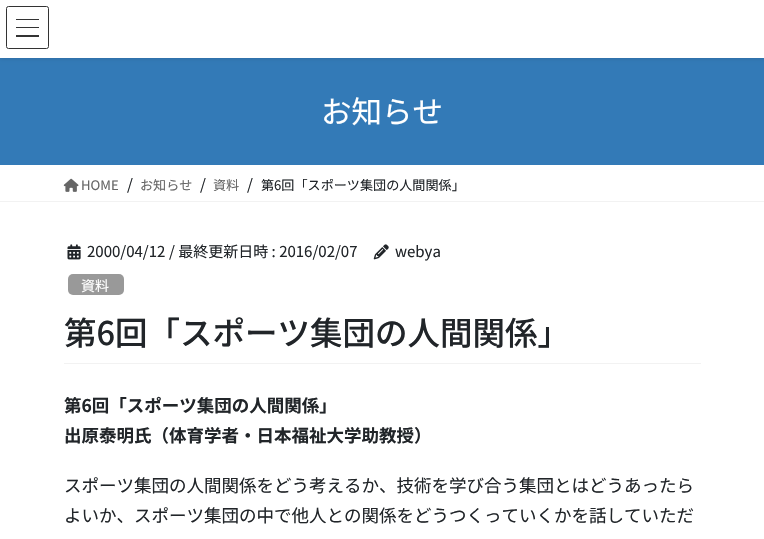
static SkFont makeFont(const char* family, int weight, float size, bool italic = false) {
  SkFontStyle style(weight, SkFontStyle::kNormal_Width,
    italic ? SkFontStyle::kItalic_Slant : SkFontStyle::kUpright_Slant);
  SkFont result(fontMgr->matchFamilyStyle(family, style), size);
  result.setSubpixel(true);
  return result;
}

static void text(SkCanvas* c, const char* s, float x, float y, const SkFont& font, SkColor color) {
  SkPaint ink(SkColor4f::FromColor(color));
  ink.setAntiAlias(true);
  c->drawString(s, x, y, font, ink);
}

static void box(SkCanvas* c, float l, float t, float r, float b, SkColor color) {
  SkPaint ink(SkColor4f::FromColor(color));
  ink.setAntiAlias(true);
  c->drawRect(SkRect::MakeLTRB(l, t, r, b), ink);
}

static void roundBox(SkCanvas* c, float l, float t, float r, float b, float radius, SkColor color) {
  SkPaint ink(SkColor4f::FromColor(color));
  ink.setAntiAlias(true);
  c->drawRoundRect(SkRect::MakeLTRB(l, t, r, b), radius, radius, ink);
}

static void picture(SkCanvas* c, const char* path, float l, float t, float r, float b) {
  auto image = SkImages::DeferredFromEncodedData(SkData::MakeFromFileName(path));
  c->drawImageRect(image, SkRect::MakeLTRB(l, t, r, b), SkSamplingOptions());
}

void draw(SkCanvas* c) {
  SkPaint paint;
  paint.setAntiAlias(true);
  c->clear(0xffffffff);
  box(c, 0, 58, 764, 165, 0xff337ab7);
  paint.setColor(0x1a000000);
  paint.setMaskFilter(SkMaskFilter::MakeBlur(kNormal_SkBlurStyle, 2));
  c->drawRect(SkRect::MakeLTRB(0, 1, 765, 59), paint);
  paint.setMaskFilter(nullptr);
  box(c, 0, 0, 764, 58, 0xffffffff);
  box(c, 16, 19, 39, 20, 0xff333333);
  box(c, 16, 27, 39, 28, 0xff333333);
  box(c, 16, 35, 39, 37, 0xff333333);
  paint.setStyle(SkPaint::kStroke_Style);
  paint.setStrokeWidth(1);
  paint.setColor(0xff333333);
  c->drawRoundRect(SkRect::MakeLTRB(6.5f, 6.5f, 48.5f, 48.5f), 2, 2, paint);
  SkFont face1 = makeFont("Noto Sans JP", 400, 30.5f);
  text(c, "お知らせ", 321, 123, face1, 0xffffffff);
  box(c, 0, 201, 764, 202, 0xfff2f2f2);
  picture(c, "img_01.png", 63, 178, 79, 192);
  SkFont face2 = makeFont("Noto Sans JP", 400, 13.1f);
  text(c, "HOME", 81, 190, face2, 0xff666666);
  SkFont face3 = makeFont("Noto Sans JP", 400, 15);
  text(c, "/", 127, 190, face3, 0xff212529);
  text(c, "お知らせ", 140, 190, face2, 0xff666666);
  text(c, "/", 200, 190, face3, 0xff212529);
  text(c, "資料", 213, 190, face2, 0xff666666);
  text(c, "/", 247, 190, face3, 0xff212529);
  text(c, "第6回「スポーツ集団の人間関係」", 261, 190, face2, 0xff212529);
  box(c, 64, 363, 701, 364, 0xfff2f2f2);
  picture(c, "img_02.png", 67, 244, 81, 260);
  text(c, "2000/04/12", 87, 257, face3, 0xff212529);
  text(c, "/ 最終更新日時 : 2016/02/07", 169, 257, face3, 0xff212529);
  picture(c, "img_03.png", 373, 244, 389, 260);
  text(c, "webya", 395, 257, face3, 0xff212529);
  roundBox(c, 68, 274, 124, 295, 5, 0xff999999);
  SkFont face4 = makeFont("Noto Sans JP", 400, 14);
  text(c, "資料", 81, 291, face4, 0xffffffff);
  SkFont face5 = makeFont("Noto Sans JP", 500, 32.5f);
  text(c, "第6回「スポーツ集団の人間関係」", 64, 345, face5, 0xff212529);
  SkFont face6 = makeFont("Noto Sans JP", 700, 17.5f);
  text(c, "第6回「スポーツ集団の人間関係」", 64, 412, face6, 0xff212529);
  text(c, "出原泰明氏（体育学者・日本福祉大学助教授）", 64, 442, face6, 0xff212529);
  SkFont face7 = makeFont("Noto Sans JP", 400, 17.5f);
  text(c, "スポーツ集団の人間関係をどう考えるか、技術を学び合う集団とはどうあったら", 64, 492, face7, 0xff212529);
  text(c, "よいか、スポーツ集団の中で他人との関係をどうつくっていくかを話していただ", 64, 522, face7, 0xff212529);
}
